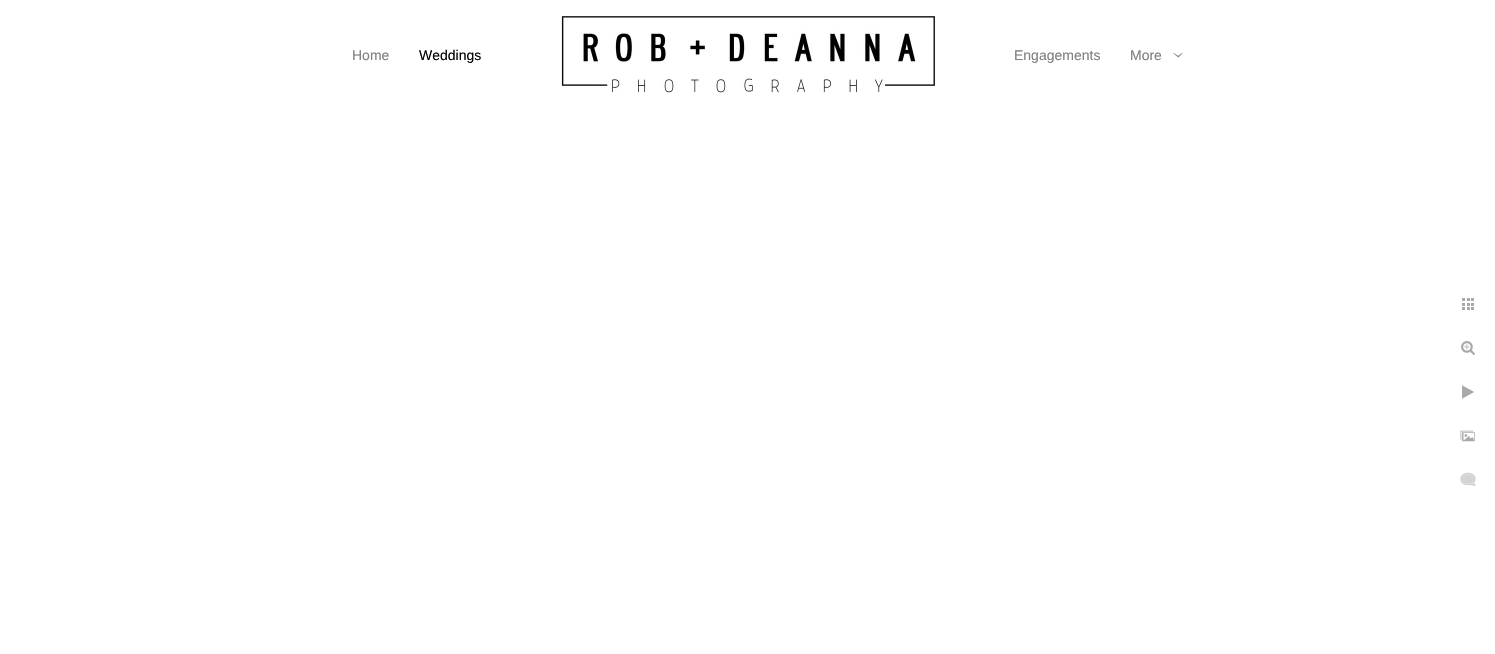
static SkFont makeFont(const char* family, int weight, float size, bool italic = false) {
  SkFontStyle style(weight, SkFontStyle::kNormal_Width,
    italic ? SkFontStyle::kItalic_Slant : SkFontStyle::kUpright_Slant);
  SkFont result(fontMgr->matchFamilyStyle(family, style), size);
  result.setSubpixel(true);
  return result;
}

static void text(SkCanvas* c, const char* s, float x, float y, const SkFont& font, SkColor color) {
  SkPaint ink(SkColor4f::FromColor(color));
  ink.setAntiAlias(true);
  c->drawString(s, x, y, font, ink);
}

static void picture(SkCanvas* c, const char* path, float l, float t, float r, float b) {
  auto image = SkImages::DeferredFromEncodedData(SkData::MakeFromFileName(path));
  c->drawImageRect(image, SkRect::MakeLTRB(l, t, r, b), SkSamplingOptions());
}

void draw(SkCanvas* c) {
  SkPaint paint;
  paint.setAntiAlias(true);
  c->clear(0xffffffff);
  SkFont face1 = makeFont("Liberation Sans", 400, 14);
  text(c, "Home", 352, 60, face1, 0xff808080);
  text(c, "Weddings", 419, 60, face1, 0xff000000);
  picture(c, "img_01.png", 561, 16, 936, 93);
  text(c, "Engagements", 1014, 60, face1, 0xff808080);
  text(c, "More", 1130, 60, face1, 0xff808080);
  picture(c, "img_02.png", 1173, 52, 1183, 58);
  picture(c, "img_03.png", 1462, 298, 1474, 310);
  picture(c, "img_04.png", 1461, 341, 1475, 355);
  picture(c, "img_05.png", 1462, 385, 1474, 399);
  picture(c, "img_06.png", 1460, 430, 1475, 442);
  picture(c, "img_07.png", 1460, 472, 1476, 486);
}
